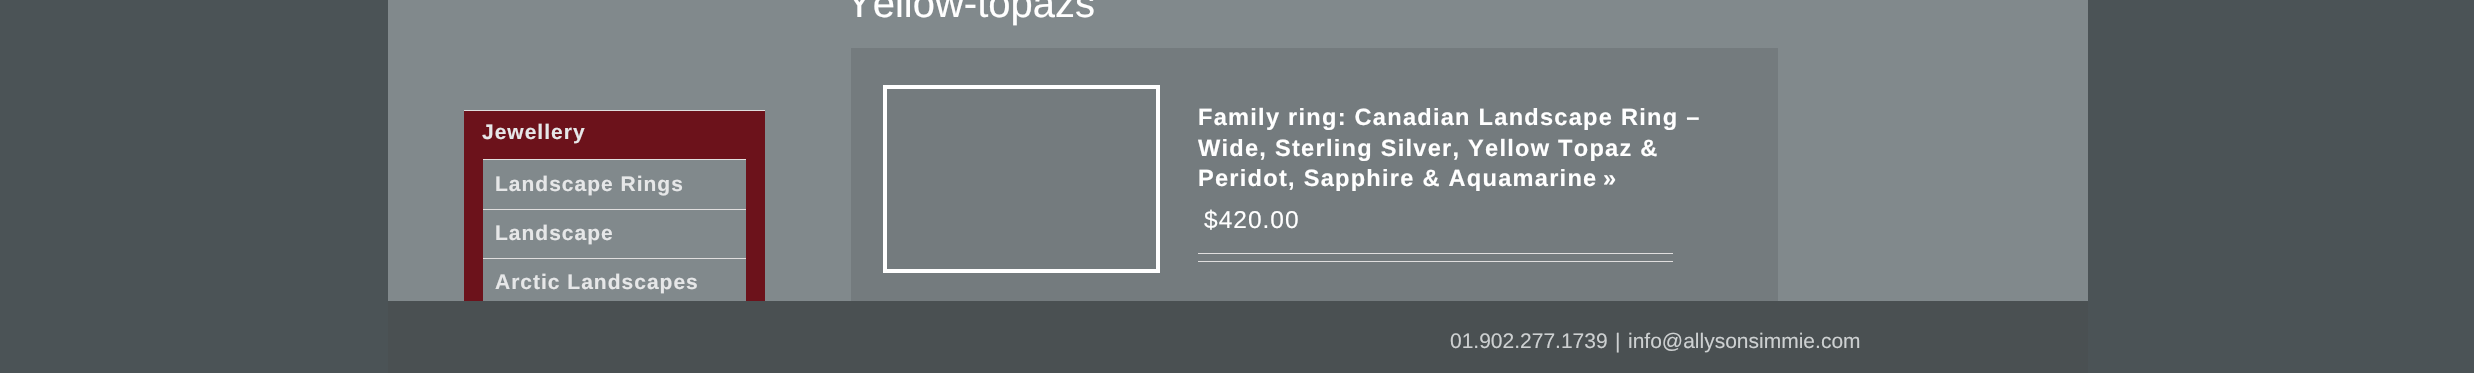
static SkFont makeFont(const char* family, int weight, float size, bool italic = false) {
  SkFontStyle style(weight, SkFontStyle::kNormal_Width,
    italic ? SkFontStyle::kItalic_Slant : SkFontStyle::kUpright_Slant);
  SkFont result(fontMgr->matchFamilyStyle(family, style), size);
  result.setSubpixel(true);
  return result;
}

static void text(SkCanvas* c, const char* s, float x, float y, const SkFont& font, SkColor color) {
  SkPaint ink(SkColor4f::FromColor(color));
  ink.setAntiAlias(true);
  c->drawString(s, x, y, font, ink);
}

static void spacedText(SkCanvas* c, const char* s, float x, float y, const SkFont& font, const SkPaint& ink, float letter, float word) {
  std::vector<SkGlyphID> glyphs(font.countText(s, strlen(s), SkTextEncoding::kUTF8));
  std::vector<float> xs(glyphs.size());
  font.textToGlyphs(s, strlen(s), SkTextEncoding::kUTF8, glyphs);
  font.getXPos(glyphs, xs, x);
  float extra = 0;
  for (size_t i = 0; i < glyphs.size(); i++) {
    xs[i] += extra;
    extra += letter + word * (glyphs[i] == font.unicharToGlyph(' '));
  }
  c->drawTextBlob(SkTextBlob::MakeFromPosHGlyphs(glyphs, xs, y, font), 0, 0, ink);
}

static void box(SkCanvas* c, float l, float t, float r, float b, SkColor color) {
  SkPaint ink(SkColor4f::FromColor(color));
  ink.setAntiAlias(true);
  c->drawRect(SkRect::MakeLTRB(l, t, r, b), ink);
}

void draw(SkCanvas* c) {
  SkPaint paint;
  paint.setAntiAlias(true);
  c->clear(0xff4b5356);
  box(c, 388, 0, 2088, 301, 0xff81898c);
  SkFont face1 = makeFont("Liberation Sans", 400, 40);
  text(c, "Yellow-topazs", 846, 17, face1, 0xffffffff);
  box(c, 464, 111, 765, 301, 0xff6c121b);
  box(c, 464, 110, 765, 111, 0xffe0dede);
  SkFont face2 = makeFont("Liberation Sans", 700, 21);
  paint.setColor(0xffe6e7e8);
  spacedText(c, "Jewellery", 482, 139, face2, paint, 1, 0);
  box(c, 483, 160, 746, 301, 0xff81898c);
  box(c, 483, 159, 746, 160, 0xffe0dede);
  spacedText(c, "Landscape Rings", 495, 191, face2, paint, 1, 0);
  box(c, 483, 209, 746, 210, 0xffe0dede);
  spacedText(c, "Landscape", 495, 240, face2, paint, 1, 0);
  box(c, 483, 258, 746, 259, 0xffe0dede);
  spacedText(c, "Arctic Landscapes", 495, 289, face2, paint, 1, 0);
  box(c, 851, 48, 1778, 301, 0xff747b7e);
  paint.setStyle(SkPaint::kStroke_Style);
  paint.setStrokeWidth(4);
  paint.setColor(0xffffffff);
  c->drawRect(SkRect::MakeLTRB(885, 87, 1158, 271), paint);
  SkFont face3 = makeFont("Liberation Sans", 700, 23.6f);
  paint.setStyle(SkPaint::kFill_Style);
  spacedText(c, "Family ring: Canadian Landscape Ring –", 1198, 125, face3, paint, 1.25f, 0);
  spacedText(c, "Wide, Sterling Silver, Yellow Topaz &", 1198, 156, face3, paint, 1.25f, 0);
  spacedText(c, "Peridot, Sapphire & Aquamarine", 1198, 186, face3, paint, 1.25f, 0);
  spacedText(c, "»", 1603, 186, face3, paint, 1.25f, 0);
  SkFont face4 = makeFont("Liberation Sans", 400, 24.5f);
  spacedText(c, "$420.00", 1204, 228, face4, paint, 1, 0);
  box(c, 1198, 253, 1673, 254, 0xffe0dede);
  box(c, 1198, 261, 1673, 262, 0xffe0dede);
  box(c, 388, 301, 2088, 373, 0xff4a5052);
  SkFont face5 = makeFont("Liberation Sans", 400, 21);
  text(c, "01.902.277.1739", 1450, 348, face5, 0xffcdd0d1);
  text(c, "|", 1615, 348, face5, 0xffcdd0d1);
  text(c, "info@allysonsimmie.com", 1628, 348, face5, 0xffcdd0d1);
}
